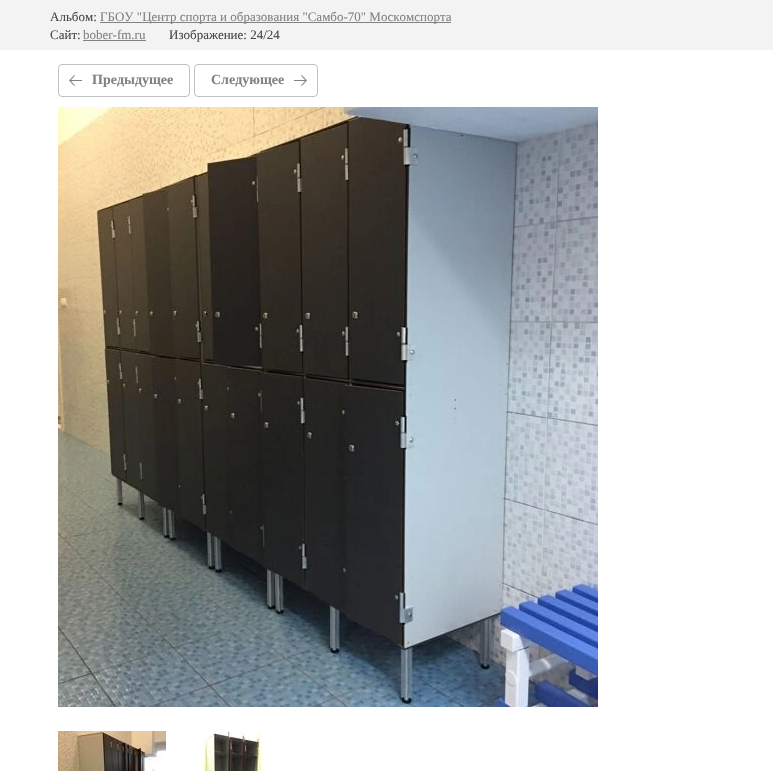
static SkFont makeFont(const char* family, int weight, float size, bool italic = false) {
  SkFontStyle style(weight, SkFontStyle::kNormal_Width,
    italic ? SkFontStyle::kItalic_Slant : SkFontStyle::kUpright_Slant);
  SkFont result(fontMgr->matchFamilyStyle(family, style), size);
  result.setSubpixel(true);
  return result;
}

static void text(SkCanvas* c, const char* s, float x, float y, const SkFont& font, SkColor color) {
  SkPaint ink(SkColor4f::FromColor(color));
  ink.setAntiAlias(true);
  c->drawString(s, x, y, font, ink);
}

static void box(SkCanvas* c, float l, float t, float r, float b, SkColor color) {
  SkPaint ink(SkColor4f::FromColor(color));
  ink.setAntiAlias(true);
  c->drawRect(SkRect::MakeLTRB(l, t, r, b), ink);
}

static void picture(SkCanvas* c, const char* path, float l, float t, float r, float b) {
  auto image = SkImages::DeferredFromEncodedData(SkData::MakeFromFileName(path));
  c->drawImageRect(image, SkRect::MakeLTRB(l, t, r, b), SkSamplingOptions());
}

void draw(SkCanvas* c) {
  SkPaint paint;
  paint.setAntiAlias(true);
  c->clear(0xffffffff);
  box(c, 0, 0, 773, 50, 0xfff3f3f3);
  SkFont face1 = makeFont("Liberation Serif", 400, 13);
  text(c, "Альбом:", 50, 21, face1, 0xff484848);
  box(c, 100, 22, 451, 23, 0xff828282);
  text(c, "ГБОУ \"Центр спорта и образования \"Самбо-70\" Москомспорта", 100, 21, face1, 0xff828282);
  text(c, "Сайт:", 50, 39, face1, 0xff484848);
  text(c, "bober-fm.ru", 83, 39, face1, 0xff828282);
  box(c, 83, 40, 146, 41, 0xff828282);
  text(c, "Изображение: 24/24", 169, 39, face1, 0xff484848);
  paint.setStyle(SkPaint::kStroke_Style);
  paint.setStrokeWidth(1);
  paint.setColor(0xffc1c1c1);
  c->drawRoundRect(SkRect::MakeLTRB(58.5f, 64.5f, 189.5f, 96.5f), 3.5f, 3.5f, paint);
  picture(c, "img_01.png", 69, 75, 82, 86);
  SkFont face2 = makeFont("Liberation Serif", 700, 14);
  text(c, "Предыдущее", 92, 84, face2, 0xff828282);
  c->drawRoundRect(SkRect::MakeLTRB(194.5f, 64.5f, 317.5f, 96.5f), 3.5f, 3.5f, paint);
  text(c, "Следующее", 211, 84, face2, 0xff828282);
  picture(c, "img_02.png", 294, 75, 307, 86);
  picture(c, "img_03.png", 58, 107, 598, 707);
  picture(c, "img_04.png", 58, 731, 166, 771);
  picture(c, "img_05.png", 204, 731, 261, 771);
}
